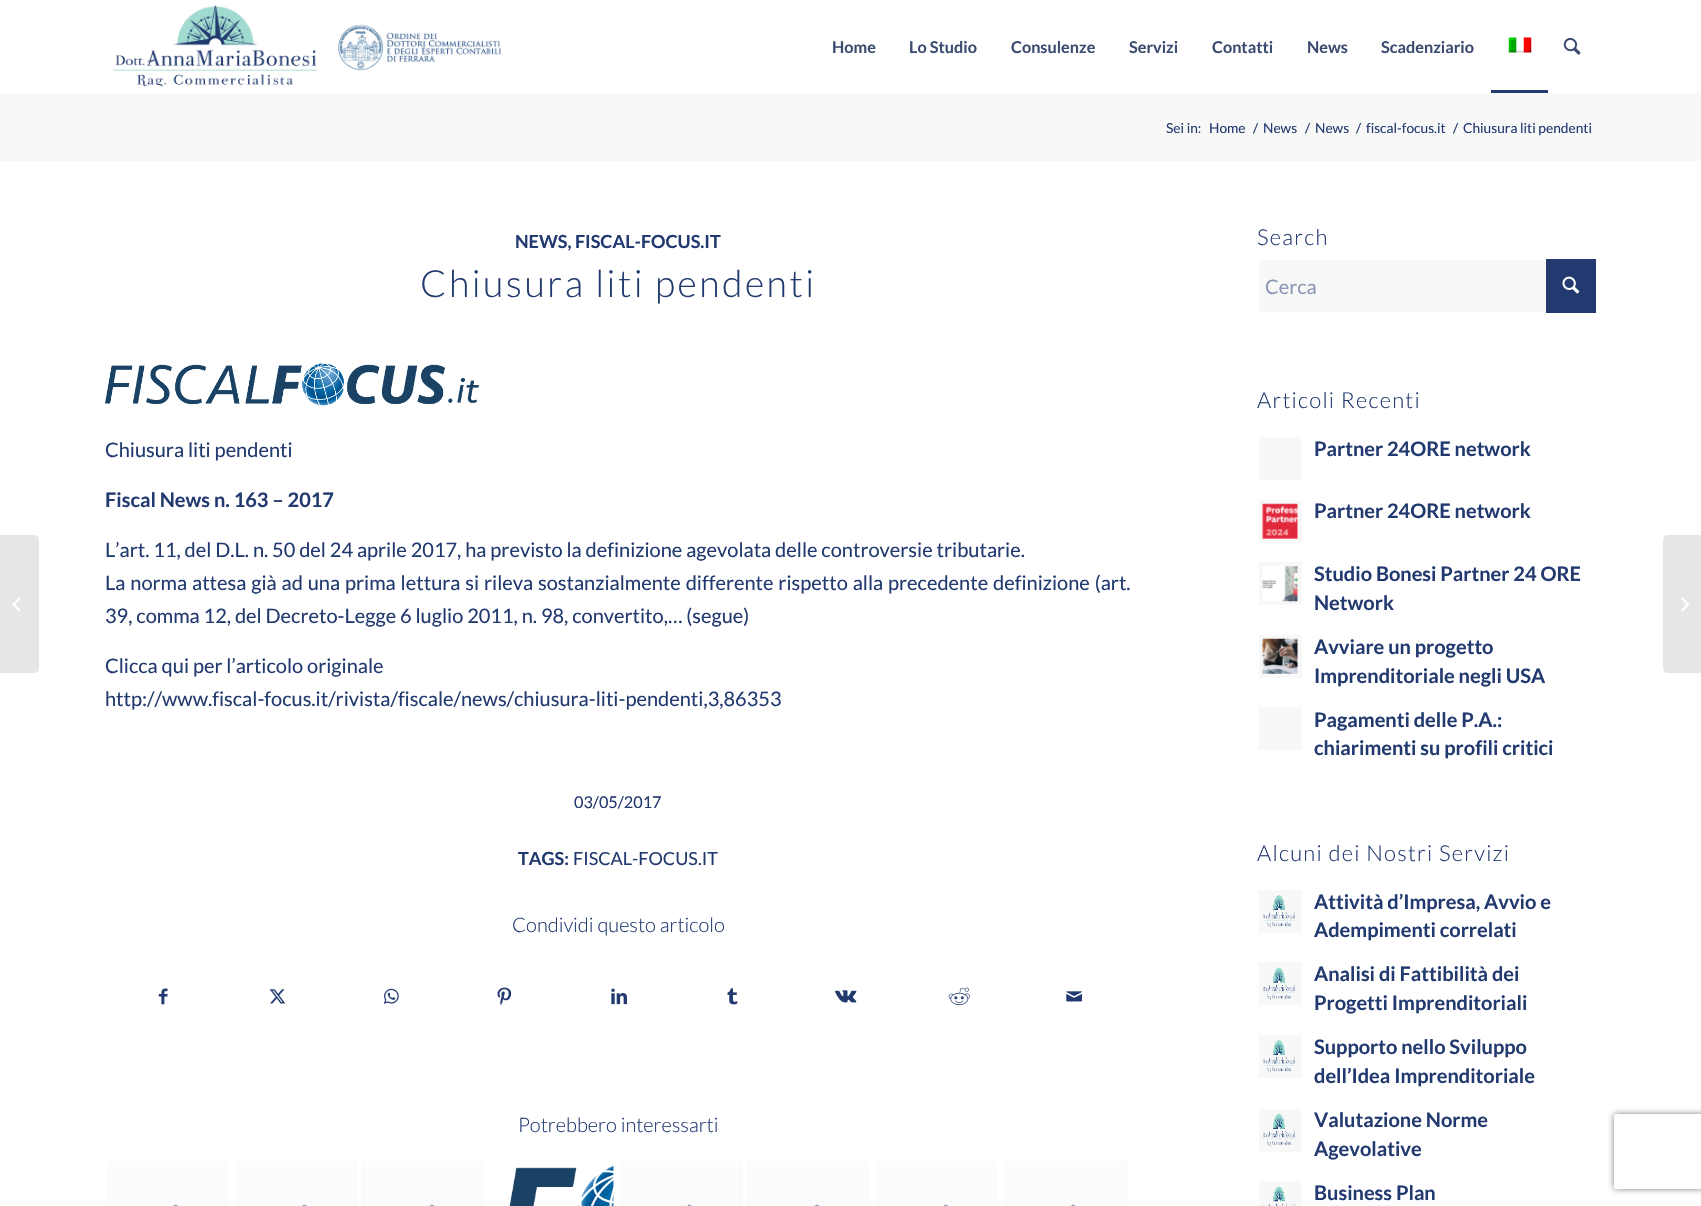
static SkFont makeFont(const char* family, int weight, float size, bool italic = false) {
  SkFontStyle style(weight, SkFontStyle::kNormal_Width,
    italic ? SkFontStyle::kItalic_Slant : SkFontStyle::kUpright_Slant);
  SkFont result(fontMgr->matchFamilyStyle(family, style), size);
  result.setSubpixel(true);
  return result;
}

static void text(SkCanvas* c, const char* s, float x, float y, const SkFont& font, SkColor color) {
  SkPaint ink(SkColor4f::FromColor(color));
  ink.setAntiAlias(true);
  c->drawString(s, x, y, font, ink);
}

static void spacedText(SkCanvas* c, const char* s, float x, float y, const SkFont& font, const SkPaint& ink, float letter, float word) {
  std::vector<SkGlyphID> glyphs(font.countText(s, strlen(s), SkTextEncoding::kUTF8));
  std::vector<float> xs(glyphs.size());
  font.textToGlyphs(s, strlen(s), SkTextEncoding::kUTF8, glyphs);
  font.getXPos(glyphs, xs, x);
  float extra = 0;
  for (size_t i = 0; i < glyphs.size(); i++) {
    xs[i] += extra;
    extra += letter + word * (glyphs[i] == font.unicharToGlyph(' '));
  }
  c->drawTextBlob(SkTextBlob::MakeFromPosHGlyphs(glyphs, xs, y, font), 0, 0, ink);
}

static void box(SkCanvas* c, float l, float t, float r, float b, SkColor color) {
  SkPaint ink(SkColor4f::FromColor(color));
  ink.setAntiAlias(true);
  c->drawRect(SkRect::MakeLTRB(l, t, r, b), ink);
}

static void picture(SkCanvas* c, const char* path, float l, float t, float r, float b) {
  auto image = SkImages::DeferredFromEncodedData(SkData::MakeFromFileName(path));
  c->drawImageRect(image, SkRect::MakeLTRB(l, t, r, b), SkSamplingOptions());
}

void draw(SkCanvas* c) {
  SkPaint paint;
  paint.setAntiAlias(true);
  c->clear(0xffffffff);
  picture(c, "img_01.png", 113, 5, 501, 87);
  SkFont face1 = makeFont("Lato", 700, 16.25f);
  text(c, "Home", 832, 53, face1, 0xff3b4c70);
  text(c, "Lo Studio", 909, 53, face1, 0xff3b4c70);
  text(c, "Consulenze", 1011, 53, face1, 0xff3b4c70);
  text(c, "Servizi", 1129, 53, face1, 0xff3b4c70);
  text(c, "Contatti", 1212, 53, face1, 0xff3b4c70);
  text(c, "News", 1307, 53, face1, 0xff3b4c70);
  text(c, "Scadenziario", 1381, 53, face1, 0xff3b4c70);
  picture(c, "img_02.png", 1508, 37, 1532, 53);
  box(c, 1491, 90, 1548, 93, 0xff223a6f);
  picture(c, "img_03.png", 1563, 37, 1581, 55);
  paint.setColor(0xffe6e6e6);
  c->drawPath(SkPathBuilder().moveTo(0, 535).lineTo(34, 535).cubicTo(37, 535, 39, 537, 39, 540).lineTo(39, 668).cubicTo(39, 671, 37, 673, 34, 673).lineTo(0, 673).close().detach(), paint);
  picture(c, "img_04.png", 12, 597, 21, 612);
  box(c, 0, 93, 1701, 161, 0xfff8f8f8);
  SkFont face2 = makeFont("Lato", 400, 13.75f);
  text(c, "Sei in:", 1166, 133, face2, 0xff223a6f);
  text(c, "Home", 1209, 133, face2, 0xff223a6f);
  text(c, "/", 1253, 133, face2, 0xff223a6f);
  text(c, "News", 1263, 133, face2, 0xff223a6f);
  text(c, "/", 1305, 133, face2, 0xff223a6f);
  text(c, "News", 1315, 133, face2, 0xff223a6f);
  text(c, "/", 1356, 133, face2, 0xff223a6f);
  text(c, "fiscal-focus.it", 1366, 133, face2, 0xff223a6f);
  text(c, "/", 1453, 133, face2, 0xff223a6f);
  text(c, "Chiusura liti pendenti", 1463, 133, face2, 0xff223a6f);
  SkFont face3 = makeFont("Lato", 700, 18);
  text(c, "NEWS, FISCAL-FOCUS.IT", 515, 248, face3, 0xff223a6f);
  SkFont face4 = makeFont("Lato", 300, 37.5f);
  paint.setColor(0xff223a6f);
  spacedText(c, "Chiusura liti pendenti", 420, 297, face4, paint, 2.5f, 0);
  picture(c, "img_05.png", 105, 363, 479, 406);
  SkFont face5 = makeFont("Lato", 400, 20);
  text(c, "Chiusura liti pendenti", 105, 457, face5, 0xff223a6f);
  SkFont face6 = makeFont("Lato", 700, 20);
  text(c, "Fiscal News n. 163 – 2017", 105, 507, face6, 0xff223a6f);
  text(c, "L’art. 11, del D.L. n. 50 del 24 aprile 2017, ha previsto la definizione agevolata delle controversie tributarie.", 105, 557, face5, 0xff223a6f);
  spacedText(c, "La norma attesa già ad una prima lettura si rileva sostanzialmente differente rispetto alla precedente definizione (art.", 105, 590, face5, paint, 0, 1);
  text(c, "39, comma 12, del Decreto-Legge 6 luglio 2011, n. 98, convertito,… (segue)", 105, 623, face5, 0xff223a6f);
  text(c, "Clicca qui per l’articolo originale", 105, 673, face5, 0xff223a6f);
  text(c, "http://www.fiscal-focus.it/rivista/fiscale/news/chiusura-liti-pendenti,3,86353", 105, 706, face5, 0xff223a6f);
  SkFont face7 = makeFont("Lato", 400, 16.25f);
  text(c, "03/05/2017", 574, 808, face7, 0xff223a6f);
  text(c, "TAGS:", 518, 865, face3, 0xff223a6f);
  SkFont face8 = makeFont("Lato", 400, 18);
  text(c, "FISCAL-FOCUS.IT", 573, 865, face8, 0xff223a6f);
  SkFont face9 = makeFont("Lato", 300, 20);
  text(c, "Condividi questo articolo", 512, 932, face9, 0xff223a6f);
  picture(c, "img_06.png", 158, 988, 168, 1005);
  picture(c, "img_07.png", 269, 989, 286, 1004);
  picture(c, "img_08.png", 383, 988, 399, 1004);
  picture(c, "img_09.png", 497, 987, 512, 1005);
  picture(c, "img_10.png", 611, 988, 627, 1005);
  picture(c, "img_11.png", 727, 988, 738, 1005);
  picture(c, "img_12.png", 835, 990, 857, 1003);
  picture(c, "img_13.png", 948, 987, 970, 1006);
  picture(c, "img_14.png", 1066, 991, 1082, 1002);
  text(c, "Potrebbero interessarti", 518, 1132, face9, 0xff223a6f);
  paint.setColor(0xfff8f8f8);
  c->drawRoundRect(SkRect::MakeLTRB(105.5f, 1160.5f, 229.5f, 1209.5f), 2, 2, paint);
  paint.setStyle(SkPaint::kStroke_Style);
  paint.setStrokeWidth(1);
  paint.setColor(0xffffffff);
  c->drawRoundRect(SkRect::MakeLTRB(105.5f, 1160.5f, 229.5f, 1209.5f), 2, 2, paint);
  box(c, 106, 1161, 229, 1206, 0x80ffffff);
  picture(c, "img_15.png", 173, 1204, 178, 1206);
  paint.setStyle(SkPaint::kFill_Style);
  paint.setColor(0xfff8f8f8);
  c->drawRoundRect(SkRect::MakeLTRB(234.5f, 1160.5f, 357.5f, 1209.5f), 2, 2, paint);
  paint.setStyle(SkPaint::kStroke_Style);
  paint.setColor(0xffffffff);
  c->drawRoundRect(SkRect::MakeLTRB(234.5f, 1160.5f, 357.5f, 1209.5f), 2, 2, paint);
  box(c, 235, 1161, 356, 1206, 0x80ffffff);
  picture(c, "img_16.png", 302, 1204, 307, 1206);
  paint.setStyle(SkPaint::kFill_Style);
  paint.setColor(0xfff8f8f8);
  c->drawRoundRect(SkRect::MakeLTRB(361.5f, 1160.5f, 485.5f, 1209.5f), 2, 2, paint);
  paint.setStyle(SkPaint::kStroke_Style);
  paint.setColor(0xffffffff);
  c->drawRoundRect(SkRect::MakeLTRB(361.5f, 1160.5f, 485.5f, 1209.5f), 2, 2, paint);
  box(c, 363, 1161, 485, 1206, 0x80ffffff);
  picture(c, "img_17.png", 429, 1204, 435, 1206);
  picture(c, "img_18.png", 509, 1165, 614, 1206);
  paint.setStyle(SkPaint::kFill_Style);
  paint.setColor(0xfff8f8f8);
  c->drawRoundRect(SkRect::MakeLTRB(618.5f, 1160.5f, 742.5f, 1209.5f), 2, 2, paint);
  paint.setStyle(SkPaint::kStroke_Style);
  paint.setColor(0xffffffff);
  c->drawRoundRect(SkRect::MakeLTRB(618.5f, 1160.5f, 742.5f, 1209.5f), 2, 2, paint);
  box(c, 619, 1161, 741, 1206, 0x80ffffff);
  picture(c, "img_16.png", 687, 1204, 692, 1206);
  paint.setStyle(SkPaint::kFill_Style);
  paint.setColor(0xfff8f8f8);
  c->drawRoundRect(SkRect::MakeLTRB(746.5f, 1160.5f, 870.5f, 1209.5f), 2, 2, paint);
  paint.setStyle(SkPaint::kStroke_Style);
  paint.setColor(0xffffffff);
  c->drawRoundRect(SkRect::MakeLTRB(746.5f, 1160.5f, 870.5f, 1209.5f), 2, 2, paint);
  box(c, 748, 1161, 870, 1206, 0x80ffffff);
  picture(c, "img_17.png", 814, 1204, 820, 1206);
  paint.setStyle(SkPaint::kFill_Style);
  paint.setColor(0xfff8f8f8);
  c->drawRoundRect(SkRect::MakeLTRB(875.5f, 1160.5f, 998.5f, 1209.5f), 2, 2, paint);
  paint.setStyle(SkPaint::kStroke_Style);
  paint.setColor(0xffffffff);
  c->drawRoundRect(SkRect::MakeLTRB(875.5f, 1160.5f, 998.5f, 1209.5f), 2, 2, paint);
  box(c, 876, 1161, 998, 1206, 0x80ffffff);
  picture(c, "img_15.png", 943, 1204, 948, 1206);
  paint.setStyle(SkPaint::kFill_Style);
  paint.setColor(0xfff8f8f8);
  c->drawRoundRect(SkRect::MakeLTRB(1003.5f, 1160.5f, 1127.5f, 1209.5f), 2, 2, paint);
  paint.setStyle(SkPaint::kStroke_Style);
  paint.setColor(0xffffffff);
  c->drawRoundRect(SkRect::MakeLTRB(1003.5f, 1160.5f, 1127.5f, 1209.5f), 2, 2, paint);
  box(c, 1004, 1161, 1126, 1206, 0x80ffffff);
  picture(c, "img_19.png", 1071, 1204, 1076, 1206);
  SkFont face10 = makeFont("Lato", 300, 22);
  paint.setStyle(SkPaint::kFill_Style);
  paint.setColor(0xff223a6f);
  spacedText(c, "Search", 1257, 245, face10, paint, 1.25f, 0);
  box(c, 1259, 260, 1546, 312, 0xfff8f8f8);
  text(c, "Cerca", 1265, 294, face5, 0xff8d99b4);
  box(c, 1546, 259, 1596, 313, 0xff223a6f);
  picture(c, "img_20.png", 1562, 276, 1580, 294);
  spacedText(c, "Articoli Recenti", 1257, 408, face10, paint, 1.25f, 0);
  box(c, 1259, 437, 1302, 480, 0xfff8f8f8);
  text(c, "Partner 24ORE network", 1314, 456, face6, 0xff223a6f);
  box(c, 1259, 500, 1302, 543, 0xfff8f8f8);
  picture(c, "img_21.png", 1262, 503, 1298, 539);
  text(c, "Partner 24ORE network", 1314, 518, face6, 0xff223a6f);
  box(c, 1259, 562, 1302, 605, 0xfff8f8f8);
  picture(c, "img_22.png", 1262, 566, 1298, 602);
  text(c, "Studio Bonesi Partner 24 ORE", 1314, 581, face6, 0xff223a6f);
  text(c, "Network", 1314, 610, face6, 0xff223a6f);
  box(c, 1259, 635, 1302, 678, 0xfff8f8f8);
  picture(c, "img_23.png", 1262, 638, 1298, 674);
  text(c, "Avviare un progetto", 1314, 654, face6, 0xff223a6f);
  text(c, "Imprenditoriale negli USA", 1314, 683, face6, 0xff223a6f);
  box(c, 1259, 707, 1302, 750, 0xfff8f8f8);
  text(c, "Pagamenti delle P.A.:", 1314, 727, face6, 0xff223a6f);
  text(c, "chiarimenti su profili critici", 1314, 755, face6, 0xff223a6f);
  spacedText(c, "Alcuni dei Nostri Servizi", 1257, 861, face10, paint, 1.25f, 0);
  box(c, 1259, 890, 1302, 933, 0xfff8f8f8);
  picture(c, "img_24.png", 1263, 895, 1295, 928);
  text(c, "Attività d’Impresa, Avvio e", 1314, 909, face6, 0xff223a6f);
  text(c, "Adempimenti correlati", 1314, 937, face6, 0xff223a6f);
  box(c, 1259, 962, 1302, 1005, 0xfff8f8f8);
  picture(c, "img_25.png", 1263, 967, 1295, 1000);
  text(c, "Analisi di Fattibilità dei", 1314, 981, face6, 0xff223a6f);
  text(c, "Progetti Imprenditoriali", 1314, 1010, face6, 0xff223a6f);
  box(c, 1259, 1035, 1302, 1078, 0xfff8f8f8);
  picture(c, "img_24.png", 1263, 1040, 1295, 1073);
  text(c, "Supporto nello Sviluppo", 1314, 1054, face6, 0xff223a6f);
  text(c, "dell’Idea Imprenditoriale", 1314, 1083, face6, 0xff223a6f);
  box(c, 1259, 1109, 1302, 1152, 0xfff8f8f8);
  picture(c, "img_26.png", 1263, 1113, 1295, 1147);
  text(c, "Valutazione Norme", 1314, 1127, face6, 0xff223a6f);
  text(c, "Agevolative", 1314, 1156, face6, 0xff223a6f);
  box(c, 1259, 1181, 1302, 1206, 0xfff8f8f8);
  picture(c, "img_27.png", 1263, 1186, 1295, 1206);
  text(c, "Business Plan", 1314, 1200, face6, 0xff223a6f);
  paint.setColor(0xffe6e6e6);
  c->drawPath(SkPathBuilder().moveTo(1668, 535).lineTo(1701, 535).lineTo(1701, 673).lineTo(1668, 673).cubicTo(1665, 673, 1663, 671, 1663, 668).lineTo(1663, 540).cubicTo(1663, 537, 1665, 535, 1668, 535).close().detach(), paint);
  picture(c, "img_28.png", 1681, 597, 1689, 612);
  c->save();
  c->clipPath(SkPathBuilder(SkPathFillType::kEvenOdd).moveTo(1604, 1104).lineTo(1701, 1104).lineTo(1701, 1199).lineTo(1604, 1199).close().moveTo(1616.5f, 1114).lineTo(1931.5f, 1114).cubicTo(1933, 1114, 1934, 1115, 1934, 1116.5f).lineTo(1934, 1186.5f).cubicTo(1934, 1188, 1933, 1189, 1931.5f, 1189).lineTo(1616.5f, 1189).cubicTo(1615, 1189, 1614, 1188, 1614, 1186.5f).lineTo(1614, 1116.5f).cubicTo(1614, 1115, 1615, 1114, 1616.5f, 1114).close().detach(), true);
  paint.setColor(0xff808080);
  paint.setMaskFilter(SkMaskFilter::MakeBlur(kNormal_SkBlurStyle, 3));
  c->drawRoundRect(SkRect::MakeLTRB(1614, 1114, 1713, 1189), 2.5f, 2.5f, paint);
  paint.setMaskFilter(nullptr);
  c->restore();
}
